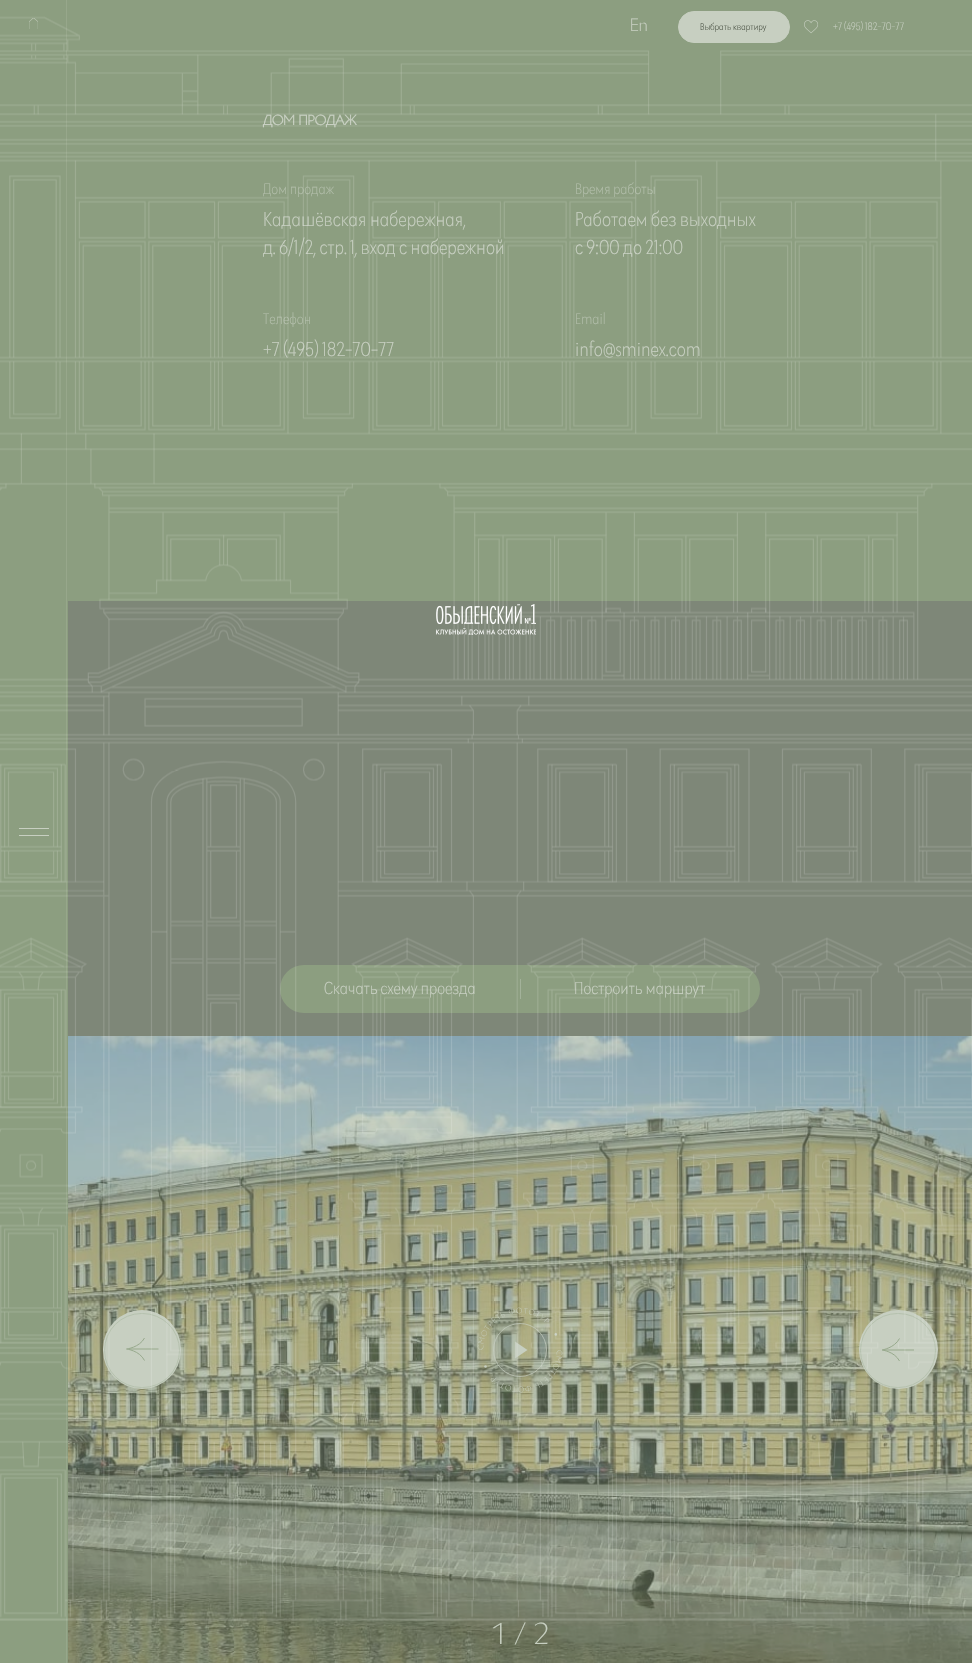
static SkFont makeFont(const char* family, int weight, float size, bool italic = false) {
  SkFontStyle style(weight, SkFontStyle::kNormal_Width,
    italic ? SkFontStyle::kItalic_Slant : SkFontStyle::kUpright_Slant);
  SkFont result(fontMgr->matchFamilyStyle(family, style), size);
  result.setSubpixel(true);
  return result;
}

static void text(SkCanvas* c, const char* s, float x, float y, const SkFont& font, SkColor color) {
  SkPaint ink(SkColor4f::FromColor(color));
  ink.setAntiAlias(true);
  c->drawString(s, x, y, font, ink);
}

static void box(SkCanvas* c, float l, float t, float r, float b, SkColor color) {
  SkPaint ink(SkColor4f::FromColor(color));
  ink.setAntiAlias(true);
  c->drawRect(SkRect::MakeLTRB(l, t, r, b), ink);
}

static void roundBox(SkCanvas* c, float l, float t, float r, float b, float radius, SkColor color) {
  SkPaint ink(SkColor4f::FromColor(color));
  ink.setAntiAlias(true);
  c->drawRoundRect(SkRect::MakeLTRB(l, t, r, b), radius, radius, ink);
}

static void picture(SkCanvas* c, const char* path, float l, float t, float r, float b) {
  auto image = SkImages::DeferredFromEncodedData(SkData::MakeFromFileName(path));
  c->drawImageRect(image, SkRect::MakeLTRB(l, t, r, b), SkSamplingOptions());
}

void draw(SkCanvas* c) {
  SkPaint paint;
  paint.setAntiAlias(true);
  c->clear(0xff8c9e80);
  picture(c, "img_01.png", 29, 18, 38, 29);
  box(c, 66, 0, 67, 1663, 0xff97a78b);
  SkFont face1 = makeFont("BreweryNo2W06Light", 300, 17);
  text(c, "En", 630, 31, face1, 0xffc7cfc1);
  paint.setColor(0xffc7cfc1);
  c->drawRoundRect(SkRect::MakeLTRB(678.5f, 11.5f, 789.5f, 42.5f), 15.5f, 15.5f, paint);
  paint.setStyle(SkPaint::kStroke_Style);
  paint.setStrokeWidth(1);
  c->drawRoundRect(SkRect::MakeLTRB(678.5f, 11.5f, 789.5f, 42.5f), 15.5f, 15.5f, paint);
  SkFont face2 = makeFont("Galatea", 200, 10);
  text(c, "Выбрать квартиру", 700, 30, face2, 0xff454d3f);
  picture(c, "img_04.png", 804, 20, 818, 34);
  SkFont face3 = makeFont("Galatea", 200, 11.25f);
  text(c, "+7 (495) 182-70-77", 833, 30, face3, 0xffc7cfc1);
  box(c, 19, 828, 49, 829, 0xffc7cfc1);
  box(c, 19, 835, 49, 836, 0xffc7cfc1);
  SkFont face4 = makeFont("BreweryNo2W06Light", 700, 13.5f);
  text(c, "ДОМ ПРОДАЖ", 263, 125, face4, 0xffc7cfc1);
  SkFont face5 = makeFont("Galatea", 200, 15.75f);
  text(c, "Дом продаж", 263, 194, face5, 0xffb2beaa);
  SkFont face6 = makeFont("Galatea", 200, 20.8f);
  text(c, "Кадашёвская набережная,", 263, 226, face6, 0xffc7cfc1);
  text(c, "д. 6/1/2, стр. 1, вход с набережной", 263, 254, face6, 0xffc7cfc1);
  text(c, "Время работы", 575, 194, face5, 0xffb2beaa);
  text(c, "Работаем без выходных", 575, 226, face6, 0xffc7cfc1);
  text(c, "с 9:00 до 21:00", 575, 254, face6, 0xffc7cfc1);
  text(c, "Телефон", 263, 324, face5, 0xffb2beaa);
  text(c, "+7 (495) 182-70-77", 263, 356, face6, 0xffc7cfc1);
  text(c, "Email", 575, 324, face5, 0xffb2beaa);
  text(c, "info@sminex.com", 575, 356, face6, 0xffc7cfc1);
  box(c, 68, 601, 972, 1036, 0xff7e8778);
  roundBox(c, 280, 965, 760, 1013, 24, 0xff8c9e80);
  SkFont face7 = makeFont("Galatea", 200, 18);
  text(c, "Скачать схему проезда", 324, 994, face7, 0xffc7cfc1);
  box(c, 520, 979, 521, 999, 0xffa3b29a);
  text(c, "Построить маршрут", 574, 994, face7, 0xffc7cfc1);
  picture(c, "img_07.png", 68, 1036, 972, 1663);
  paint.setStyle(SkPaint::kFill_Style);
  c->drawPath(SkPathBuilder().moveTo(527.5f, 1350).lineTo(515, 1358.5f).lineTo(515, 1341.5f).close().detach(), paint);
  picture(c, "img_05.png", 477, 1307, 550, 1350);
  c->drawCircle(485.5f, 1366.5f, 1.3f, paint);
  c->drawCircle(555.8f, 1334.4f, 1.3f, paint);
  picture(c, "img_06.png", 490, 1350, 563, 1393);
  paint.setStyle(SkPaint::kStroke_Style);
  paint.setStrokeWidth(0.7f);
  c->drawCircle(520, 1350, 26.5f, paint);
  roundBox(c, 103, 1310, 181, 1389, 39, 0xffc7cfc1);
  paint.setStrokeWidth(1);
  paint.setColor(0xffb5c1ad);
  c->drawRoundRect(SkRect::MakeLTRB(104.5f, 1313.5f, 179.5f, 1387.5f), 37, 37, paint);
  paint.setColor(0xff97a98c);
  c->drawPath(SkPathBuilder().moveTo(158.5f, 1349).lineTo(128.5f, 1349).detach(), paint);
  paint.setStrokeJoin(SkPaint::kRound_Join);
  c->drawPath(SkPathBuilder().moveTo(144.5f, 1338).cubicTo(139.5f, 1347.5f, 126.5f, 1349, 126.5f, 1349).cubicTo(126.5f, 1349, 139.5f, 1350.5f, 144.5f, 1360.5f).detach(), paint);
  paint.setStyle(SkPaint::kFill_Style);
  paint.setColor(0xffc7cfc1);
  c->drawCircle(898.5f, 1349.5f, 39.5f, paint);
  paint.setStyle(SkPaint::kStroke_Style);
  paint.setStrokeJoin(SkPaint::kMiter_Join);
  paint.setColor(0xffb5c1ad);
  c->drawRoundRect(SkRect::MakeLTRB(860.5f, 1313.5f, 935.5f, 1387.5f), 37, 37, paint);
  paint.setColor(0xff97a98c);
  c->drawPath(SkPathBuilder().moveTo(914, 1350).lineTo(883.5f, 1350).detach(), paint);
  paint.setStrokeJoin(SkPaint::kRound_Join);
  c->drawPath(SkPathBuilder().moveTo(899.5f, 1338.5f).cubicTo(894.5f, 1348, 882, 1350, 882, 1350).cubicTo(882, 1350, 894.5f, 1351.5f, 899.5f, 1361).detach(), paint);
  picture(c, "img_02.png", 0, 16, 972, 1621);
  picture(c, "img_03.png", 436, 604, 536, 635);
  SkFont face8 = makeFont("BreweryNo2W06Light", 300, 29);
  text(c, "1 / 2", 491, 1644, face8, 0xffc7cfc1);
}
